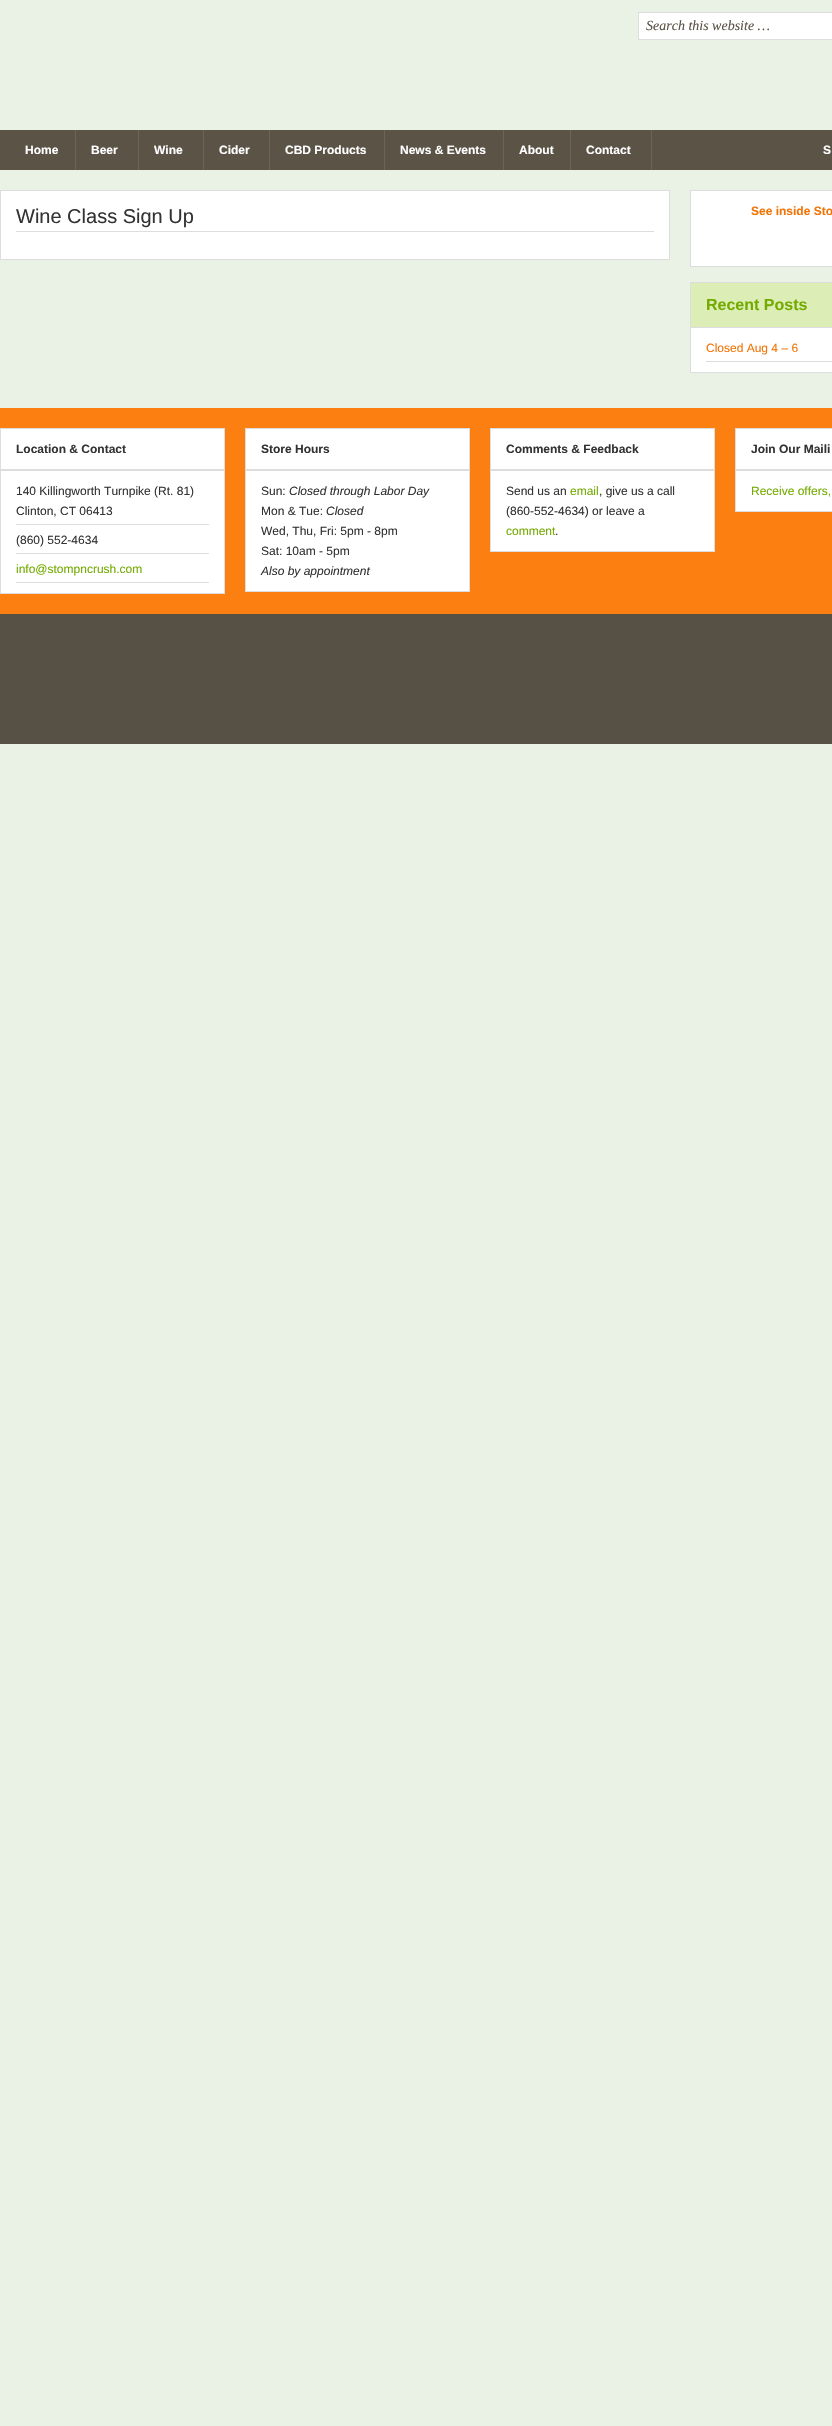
static SkFont makeFont(const char* family, int weight, float size, bool italic = false) {
  SkFontStyle style(weight, SkFontStyle::kNormal_Width,
    italic ? SkFontStyle::kItalic_Slant : SkFontStyle::kUpright_Slant);
  SkFont result(fontMgr->matchFamilyStyle(family, style), size);
  result.setSubpixel(true);
  return result;
}

static void text(SkCanvas* c, const char* s, float x, float y, const SkFont& font, SkColor color) {
  SkPaint ink(SkColor4f::FromColor(color));
  ink.setAntiAlias(true);
  c->drawString(s, x, y, font, ink);
}

static void box(SkCanvas* c, float l, float t, float r, float b, SkColor color) {
  SkPaint ink(SkColor4f::FromColor(color));
  ink.setAntiAlias(true);
  c->drawRect(SkRect::MakeLTRB(l, t, r, b), ink);
}

void draw(SkCanvas* c) {
  SkPaint paint;
  paint.setAntiAlias(true);
  c->clear(0xffeaf2e5);
  paint.setColor(0xffffffff);
  c->drawRect(SkRect::MakeLTRB(638.5f, 12.5f, 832.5f, 39.5f), paint);
  paint.setStyle(SkPaint::kStroke_Style);
  paint.setStrokeWidth(1);
  paint.setColor(0xffdddddd);
  c->drawRect(SkRect::MakeLTRB(638.5f, 12.5f, 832.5f, 39.5f), paint);
  SkFont face1 = makeFont("Liberation Serif", 400, 14, true);
  text(c, "Search this website …", 646, 30, face1, 0xff5a5346);
  box(c, 0, 130, 832, 170, 0xff5a5346);
  box(c, 75, 130, 76, 170, 0xff6c6455);
  SkFont face2 = makeFont("Liberation Sans", 700, 12);
  text(c, "Home", 25, 154, face2, 0xffffffff);
  box(c, 138, 130, 139, 170, 0xff6c6455);
  text(c, "Beer", 91, 154, face2, 0xffffffff);
  box(c, 203, 130, 204, 170, 0xff6c6455);
  text(c, "Wine", 154, 154, face2, 0xffffffff);
  box(c, 269, 130, 270, 170, 0xff6c6455);
  text(c, "Cider", 219, 154, face2, 0xffffffff);
  box(c, 384, 130, 385, 170, 0xff6c6455);
  text(c, "CBD Products", 285, 154, face2, 0xffffffff);
  box(c, 503, 130, 504, 170, 0xff6c6455);
  text(c, "News & Events", 400, 154, face2, 0xffffffff);
  box(c, 570, 130, 571, 170, 0xff6c6455);
  text(c, "About", 519, 154, face2, 0xffffffff);
  box(c, 651, 130, 652, 170, 0xff6c6455);
  text(c, "Contact", 586, 154, face2, 0xffffffff);
  text(c, "S", 823, 154, face2, 0xffffffff);
  paint.setStyle(SkPaint::kFill_Style);
  paint.setColor(0xffffffff);
  c->drawRect(SkRect::MakeLTRB(0.5f, 190.5f, 669.5f, 259.5f), paint);
  paint.setStyle(SkPaint::kStroke_Style);
  paint.setColor(0xffdddddd);
  c->drawRect(SkRect::MakeLTRB(0.5f, 190.5f, 669.5f, 259.5f), paint);
  box(c, 16, 231, 654, 232, 0xffdddddd);
  SkFont face3 = makeFont("Liberation Sans", 400, 20);
  text(c, "Wine Class Sign Up", 16, 223, face3, 0xff333333);
  paint.setStyle(SkPaint::kFill_Style);
  paint.setColor(0xffffffff);
  c->drawRect(SkRect::MakeLTRB(690.5f, 190.5f, 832.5f, 266.5f), paint);
  paint.setStyle(SkPaint::kStroke_Style);
  paint.setColor(0xffdddddd);
  c->drawRect(SkRect::MakeLTRB(690.5f, 190.5f, 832.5f, 266.5f), paint);
  text(c, "See inside Sto", 751, 215, face2, 0xfff27406);
  box(c, 691, 328, 832, 372, 0xffffffff);
  c->drawRect(SkRect::MakeLTRB(690.5f, 282.5f, 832.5f, 372.5f), paint);
  box(c, 691, 283, 832, 327, 0xffddedb6);
  box(c, 691, 327, 832, 328, 0xffdddddd);
  SkFont face4 = makeFont("Liberation Sans", 700, 16);
  text(c, "Recent Posts", 706, 310, face4, 0xff73ab01);
  box(c, 706, 361, 832, 362, 0xffdddddd);
  SkFont face5 = makeFont("Liberation Sans", 400, 12);
  text(c, "Closed Aug 4 – 6", 706, 352, face5, 0xfff27406);
  box(c, 0, 408, 832, 614, 0xfffc7f11);
  paint.setStyle(SkPaint::kFill_Style);
  paint.setColor(0xffffffff);
  c->drawRect(SkRect::MakeLTRB(0.5f, 428.5f, 224.5f, 469.5f), paint);
  paint.setStyle(SkPaint::kStroke_Style);
  paint.setColor(0xffdddddd);
  c->drawRect(SkRect::MakeLTRB(0.5f, 428.5f, 224.5f, 469.5f), paint);
  text(c, "Location & Contact", 16, 453, face2, 0xff333333);
  paint.setStyle(SkPaint::kFill_Style);
  paint.setColor(0xffffffff);
  c->drawRect(SkRect::MakeLTRB(0.5f, 470.5f, 224.5f, 593.5f), paint);
  paint.setStyle(SkPaint::kStroke_Style);
  paint.setColor(0xffdddddd);
  c->drawRect(SkRect::MakeLTRB(0.5f, 470.5f, 224.5f, 593.5f), paint);
  box(c, 16, 524, 209, 525, 0xffdddddd);
  text(c, "140 Killingworth Turnpike (Rt. 81)", 16, 495, face5, 0xff333333);
  text(c, "Clinton, CT 06413", 16, 515, face5, 0xff333333);
  box(c, 16, 553, 209, 554, 0xffdddddd);
  text(c, "(860) 552-4634", 16, 544, face5, 0xff333333);
  box(c, 16, 582, 209, 583, 0xffdddddd);
  text(c, "info@stompncrush.com", 16, 573, face5, 0xff73ab01);
  paint.setStyle(SkPaint::kFill_Style);
  paint.setColor(0xffffffff);
  c->drawRect(SkRect::MakeLTRB(245.5f, 428.5f, 469.5f, 469.5f), paint);
  paint.setStyle(SkPaint::kStroke_Style);
  paint.setColor(0xffdddddd);
  c->drawRect(SkRect::MakeLTRB(245.5f, 428.5f, 469.5f, 469.5f), paint);
  text(c, "Store Hours", 261, 453, face2, 0xff333333);
  paint.setStyle(SkPaint::kFill_Style);
  paint.setColor(0xffffffff);
  c->drawRect(SkRect::MakeLTRB(245.5f, 470.5f, 469.5f, 591.5f), paint);
  paint.setStyle(SkPaint::kStroke_Style);
  paint.setColor(0xffdddddd);
  c->drawRect(SkRect::MakeLTRB(245.5f, 470.5f, 469.5f, 591.5f), paint);
  text(c, "Sun:", 261, 495, face5, 0xff333333);
  SkFont face6 = makeFont("Liberation Sans", 400, 12, true);
  text(c, "Closed through Labor Day", 289, 495, face6, 0xff333333);
  text(c, "Mon & Tue:", 261, 515, face5, 0xff333333);
  text(c, "Closed", 326, 515, face6, 0xff333333);
  text(c, "Wed, Thu, Fri: 5pm - 8pm", 261, 535, face5, 0xff333333);
  text(c, "Sat: 10am - 5pm", 261, 555, face5, 0xff333333);
  text(c, "Also by appointment", 261, 575, face6, 0xff333333);
  paint.setStyle(SkPaint::kFill_Style);
  paint.setColor(0xffffffff);
  c->drawRect(SkRect::MakeLTRB(490.5f, 428.5f, 714.5f, 469.5f), paint);
  paint.setStyle(SkPaint::kStroke_Style);
  paint.setColor(0xffdddddd);
  c->drawRect(SkRect::MakeLTRB(490.5f, 428.5f, 714.5f, 469.5f), paint);
  text(c, "Comments & Feedback", 506, 453, face2, 0xff333333);
  paint.setStyle(SkPaint::kFill_Style);
  paint.setColor(0xffffffff);
  c->drawRect(SkRect::MakeLTRB(490.5f, 470.5f, 714.5f, 551.5f), paint);
  paint.setStyle(SkPaint::kStroke_Style);
  paint.setColor(0xffdddddd);
  c->drawRect(SkRect::MakeLTRB(490.5f, 470.5f, 714.5f, 551.5f), paint);
  text(c, "Send us an", 506, 495, face5, 0xff333333);
  text(c, "email", 570, 495, face5, 0xff73ab01);
  text(c, ", give us a call", 599, 495, face5, 0xff333333);
  text(c, "(860-552-4634) or leave a", 506, 515, face5, 0xff333333);
  text(c, "comment", 506, 535, face5, 0xff73ab01);
  text(c, ".", 555, 535, face5, 0xff333333);
  paint.setStyle(SkPaint::kFill_Style);
  paint.setColor(0xffffffff);
  c->drawRect(SkRect::MakeLTRB(735.5f, 428.5f, 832.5f, 469.5f), paint);
  paint.setStyle(SkPaint::kStroke_Style);
  paint.setColor(0xffdddddd);
  c->drawRect(SkRect::MakeLTRB(735.5f, 428.5f, 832.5f, 469.5f), paint);
  text(c, "Join Our Maili", 751, 453, face2, 0xff333333);
  paint.setStyle(SkPaint::kFill_Style);
  paint.setColor(0xffffffff);
  c->drawRect(SkRect::MakeLTRB(735.5f, 470.5f, 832.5f, 511.5f), paint);
  paint.setStyle(SkPaint::kStroke_Style);
  paint.setColor(0xffdddddd);
  c->drawRect(SkRect::MakeLTRB(735.5f, 470.5f, 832.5f, 511.5f), paint);
  text(c, "Receive offers,", 751, 495, face5, 0xff73ab01);
  box(c, 0, 614, 832, 744, 0xff575044);
}
